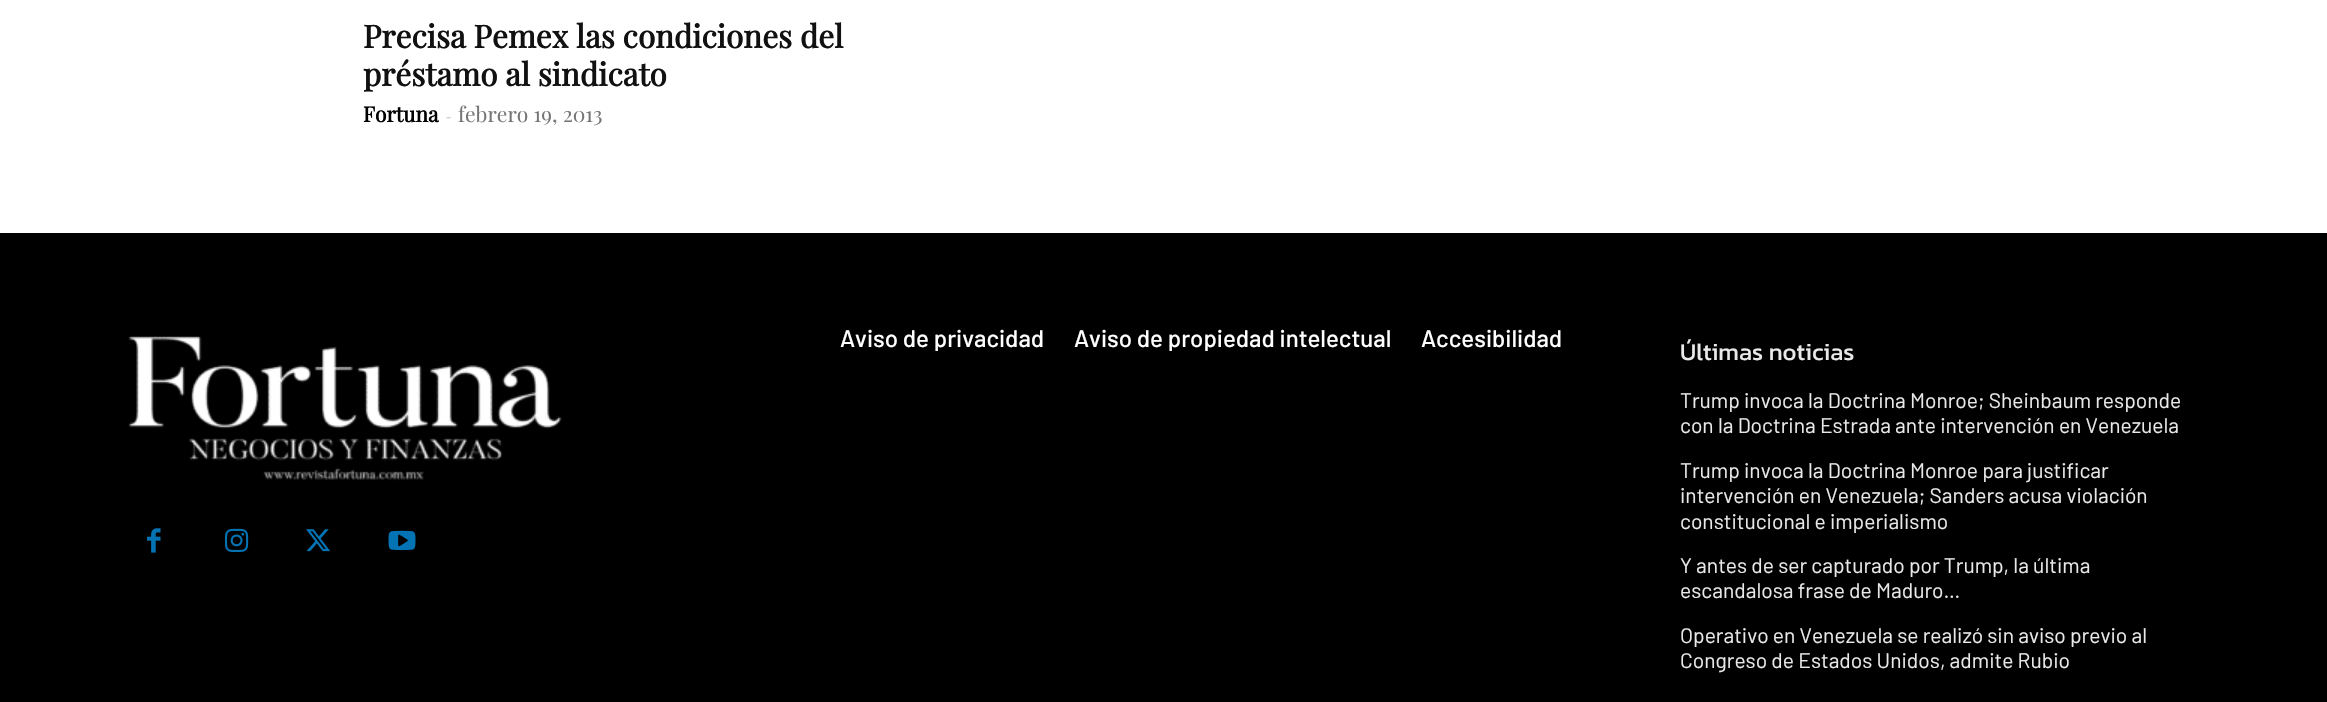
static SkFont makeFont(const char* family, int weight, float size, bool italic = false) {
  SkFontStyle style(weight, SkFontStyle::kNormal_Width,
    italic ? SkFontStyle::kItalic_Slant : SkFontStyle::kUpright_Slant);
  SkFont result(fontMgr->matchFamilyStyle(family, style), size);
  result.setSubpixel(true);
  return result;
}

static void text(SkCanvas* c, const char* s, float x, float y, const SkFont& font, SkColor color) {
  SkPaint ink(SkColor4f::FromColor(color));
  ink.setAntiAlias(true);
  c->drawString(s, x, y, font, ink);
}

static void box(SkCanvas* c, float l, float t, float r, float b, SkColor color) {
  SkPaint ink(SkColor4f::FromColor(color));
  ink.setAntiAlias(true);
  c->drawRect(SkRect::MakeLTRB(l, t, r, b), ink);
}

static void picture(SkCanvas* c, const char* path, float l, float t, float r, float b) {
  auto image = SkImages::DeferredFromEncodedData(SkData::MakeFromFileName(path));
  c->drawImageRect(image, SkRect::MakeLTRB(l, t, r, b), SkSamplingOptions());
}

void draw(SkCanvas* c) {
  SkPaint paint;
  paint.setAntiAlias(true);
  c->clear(0xffffffff);
  SkFont face1 = makeFont("Playfair Display", 700, 31.5f);
  text(c, "Precisa Pemex las condiciones del", 363, 48, face1, 0xff111111);
  text(c, "préstamo al sindicato", 363, 86, face1, 0xff111111);
  SkFont face2 = makeFont("Playfair Display", 700, 21);
  text(c, "Fortuna", 363, 122, face2, 0xff000000);
  SkFont face3 = makeFont("Open Sans", 400, 16);
  text(c, "-", 446, 122, face3, 0xffcccccc);
  SkFont face4 = makeFont("Playfair Display", 400, 21);
  text(c, "febrero 19, 2013", 458, 122, face4, 0xff767676);
  box(c, 0, 233, 2327, 702, 0xff000000);
  picture(c, "img_01.png", 128, 336, 562, 481);
  picture(c, "img_02.png", 147, 528, 161, 553);
  picture(c, "img_03.png", 225, 528, 249, 552);
  picture(c, "img_04.png", 306, 529, 331, 552);
  picture(c, "img_05.png", 388, 530, 416, 551);
  c->save();
  c->clipRect(SkRect::MakeLTRB(840, 323, 1608, 351));
  SkFont face5 = makeFont("Barlow", 500, 24);
  text(c, "Aviso de privacidad", 840, 347, face5, 0xffffffff);
  text(c, "Aviso de propiedad intelectual", 1074, 347, face5, 0xffffffff);
  c->restore();
  text(c, "Accesibilidad", 1421, 347, face5, 0xffffffff);
  SkFont face6 = makeFont("Kanit", 400, 24);
  text(c, "Últimas noticias", 1680, 360, face6, 0xffe9e9e9);
  SkFont face7 = makeFont("Barlow", 400, 21);
  text(c, "Trump invoca la Doctrina Monroe; Sheinbaum responde", 1680, 408, face7, 0xffe9e9e9);
  text(c, "con la Doctrina Estrada ante intervención en Venezuela", 1680, 433, face7, 0xffe9e9e9);
  text(c, "Trump invoca la Doctrina Monroe para justificar", 1680, 478, face7, 0xffe9e9e9);
  text(c, "intervención en Venezuela; Sanders acusa violación", 1680, 503, face7, 0xffe9e9e9);
  text(c, "constitucional e imperialismo", 1680, 529, face7, 0xffe9e9e9);
  text(c, "Y antes de ser capturado por Trump, la última", 1680, 573, face7, 0xffe9e9e9);
  text(c, "escandalosa frase de Maduro…", 1680, 598, face7, 0xffe9e9e9);
  text(c, "Operativo en Venezuela se realizó sin aviso previo al", 1680, 643, face7, 0xffe9e9e9);
  text(c, "Congreso de Estados Unidos, admite Rubio", 1680, 668, face7, 0xffe9e9e9);
}
